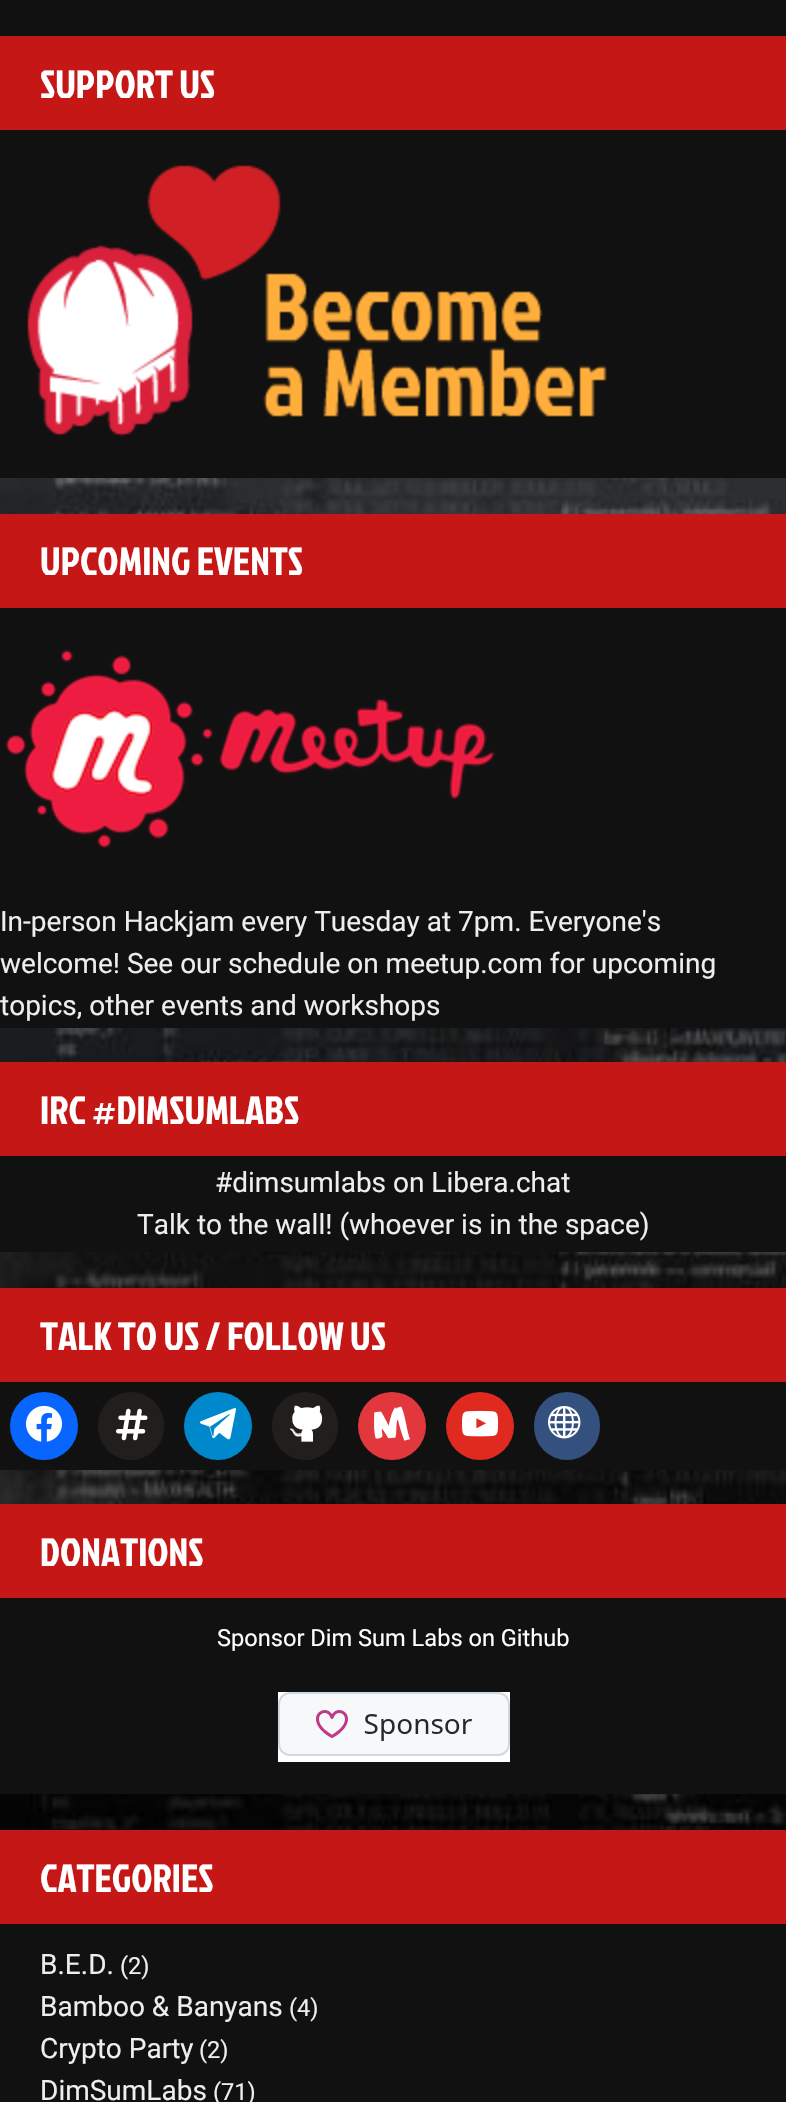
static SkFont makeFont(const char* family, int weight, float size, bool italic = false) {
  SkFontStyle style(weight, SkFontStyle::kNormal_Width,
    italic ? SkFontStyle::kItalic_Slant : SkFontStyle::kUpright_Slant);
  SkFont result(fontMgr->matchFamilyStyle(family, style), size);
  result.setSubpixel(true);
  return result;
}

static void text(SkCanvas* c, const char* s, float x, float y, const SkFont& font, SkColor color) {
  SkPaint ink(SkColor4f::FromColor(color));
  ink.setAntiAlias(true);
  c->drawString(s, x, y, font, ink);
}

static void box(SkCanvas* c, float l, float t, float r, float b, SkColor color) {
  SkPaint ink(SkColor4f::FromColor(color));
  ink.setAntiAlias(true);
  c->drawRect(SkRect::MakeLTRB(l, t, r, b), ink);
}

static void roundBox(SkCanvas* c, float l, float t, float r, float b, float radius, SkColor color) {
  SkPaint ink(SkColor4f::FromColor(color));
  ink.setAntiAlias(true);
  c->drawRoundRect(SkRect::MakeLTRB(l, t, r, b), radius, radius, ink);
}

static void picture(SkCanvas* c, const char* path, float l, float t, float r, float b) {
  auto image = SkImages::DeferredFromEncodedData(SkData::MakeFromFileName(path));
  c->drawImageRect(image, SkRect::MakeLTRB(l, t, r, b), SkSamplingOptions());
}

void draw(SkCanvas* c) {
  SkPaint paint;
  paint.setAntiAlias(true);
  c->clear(0xffffffff);
  picture(c, "img_01.png", 0, 478, 786, 1830);
  box(c, 0, 0, 786, 36, 0xff111111);
  box(c, 0, 130, 786, 478, 0xff111111);
  box(c, 0, 36, 786, 130, 0xffc61717);
  SkFont face1 = makeFont("Jockey One", 400, 39.25f);
  text(c, "SUPPORT US", 40, 98, face1, 0xffffffff);
  picture(c, "img_02.png", 27, 165, 607, 437);
  box(c, 0, 608, 786, 1028, 0xff111111);
  box(c, 0, 514, 786, 608, 0xffc61717);
  text(c, "UPCOMING EVENTS", 40, 575, face1, 0xffffffff);
  picture(c, "img_03.png", 5, 649, 495, 849);
  SkFont face2 = makeFont("Roboto", 400, 28);
  text(c, "In-person Hackjam every Tuesday at 7pm. Everyone's", 0, 931, face2, 0xffeeeeee);
  text(c, "welcome! See our schedule on meetup.com for upcoming", 0, 973, face2, 0xffeeeeee);
  text(c, "topics, other events and workshops", 0, 1015, face2, 0xffeeeeee);
  box(c, 0, 1156, 786, 1252, 0xff111111);
  box(c, 0, 1062, 786, 1156, 0xffc61717);
  text(c, "IRC #DIMSUMLABS", 40, 1124, face1, 0xffffffff);
  text(c, "#dimsumlabs on Libera.chat", 215, 1192, face2, 0xffeeeeee);
  text(c, "Talk to the wall! (whoever is in the space)", 137, 1234, face2, 0xffeeeeee);
  box(c, 0, 1382, 786, 1470, 0xff111111);
  box(c, 0, 1288, 786, 1382, 0xffc61717);
  text(c, "TALK TO US / FOLLOW US", 40, 1350, face1, 0xffffffff);
  paint.setColor(0xff0866ff);
  c->drawCircle(44, 1426, 34, paint);
  picture(c, "img_04.png", 26, 1405, 62, 1442);
  roundBox(c, 98, 1392, 164, 1460, 33, 0xff221e1b);
  picture(c, "img_05.png", 116, 1408, 148, 1441);
  paint.setColor(0xff0088cc);
  c->drawCircle(218, 1426, 34, paint);
  picture(c, "img_06.png", 200, 1408, 237, 1440);
  roundBox(c, 272, 1392, 338, 1460, 33, 0xff221e1b);
  picture(c, "img_07.png", 289, 1405, 323, 1442);
  paint.setColor(0xffe2373c);
  c->drawCircle(392, 1426, 34, paint);
  picture(c, "img_08.png", 374, 1406, 410, 1441);
  paint.setColor(0xffe02a20);
  c->drawCircle(480, 1426, 34, paint);
  picture(c, "img_09.png", 462, 1410, 499, 1437);
  roundBox(c, 534, 1392, 600, 1460, 33, 0xff34507e);
  picture(c, "img_10.png", 548, 1406, 581, 1439);
  box(c, 0, 1598, 786, 1794, 0xff111111);
  box(c, 0, 1504, 786, 1598, 0xffc61717);
  text(c, "DONATIONS", 40, 1566, face1, 0xffffffff);
  SkFont face3 = makeFont("Roboto", 400, 23.6f);
  text(c, "Sponsor Dim Sum Labs on Github", 217, 1646, face3, 0xffffffff);
  picture(c, "img_11.png", 278, 1692, 510, 1762);
  box(c, 0, 1924, 786, 2102, 0xff111111);
  box(c, 0, 1830, 786, 1924, 0xffc61717);
  text(c, "CATEGORIES", 40, 1892, face1, 0xffffffff);
  text(c, "B.E.D.", 40, 1974, face2, 0xffeeeeee);
  text(c, "(2)", 120, 1974, face3, 0xffeeeeee);
  text(c, "Bamboo & Banyans", 40, 2016, face2, 0xffeeeeee);
  text(c, "(4)", 289, 2016, face3, 0xffeeeeee);
  text(c, "Crypto Party", 40, 2058, face2, 0xffeeeeee);
  text(c, "(2)", 199, 2058, face3, 0xffeeeeee);
  text(c, "DimSumLabs", 40, 2100, face2, 0xffeeeeee);
  text(c, "(71)", 213, 2100, face3, 0xffeeeeee);
}
